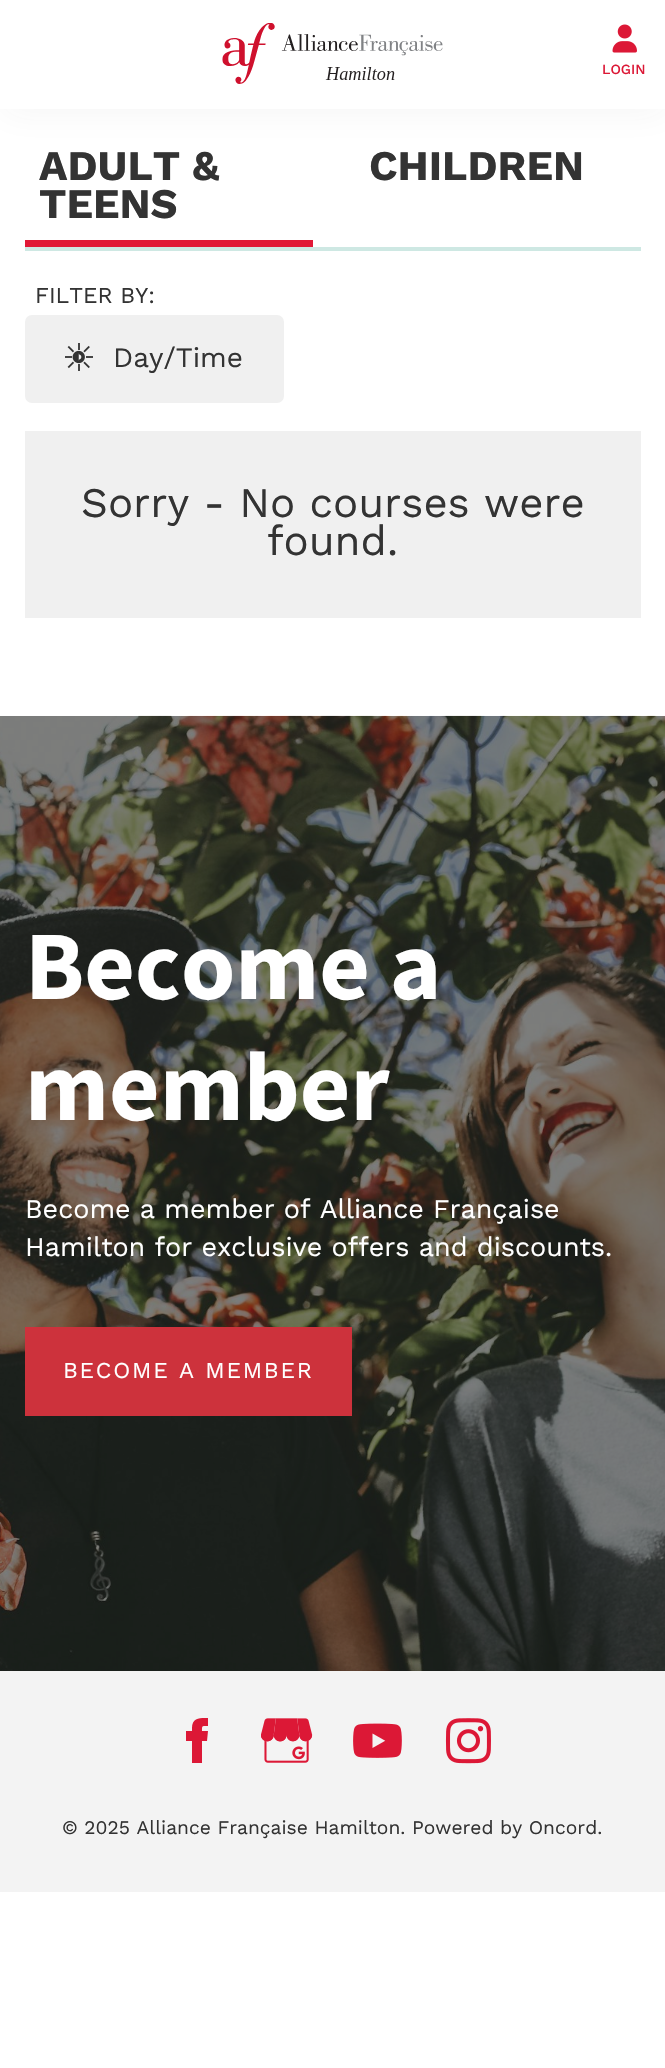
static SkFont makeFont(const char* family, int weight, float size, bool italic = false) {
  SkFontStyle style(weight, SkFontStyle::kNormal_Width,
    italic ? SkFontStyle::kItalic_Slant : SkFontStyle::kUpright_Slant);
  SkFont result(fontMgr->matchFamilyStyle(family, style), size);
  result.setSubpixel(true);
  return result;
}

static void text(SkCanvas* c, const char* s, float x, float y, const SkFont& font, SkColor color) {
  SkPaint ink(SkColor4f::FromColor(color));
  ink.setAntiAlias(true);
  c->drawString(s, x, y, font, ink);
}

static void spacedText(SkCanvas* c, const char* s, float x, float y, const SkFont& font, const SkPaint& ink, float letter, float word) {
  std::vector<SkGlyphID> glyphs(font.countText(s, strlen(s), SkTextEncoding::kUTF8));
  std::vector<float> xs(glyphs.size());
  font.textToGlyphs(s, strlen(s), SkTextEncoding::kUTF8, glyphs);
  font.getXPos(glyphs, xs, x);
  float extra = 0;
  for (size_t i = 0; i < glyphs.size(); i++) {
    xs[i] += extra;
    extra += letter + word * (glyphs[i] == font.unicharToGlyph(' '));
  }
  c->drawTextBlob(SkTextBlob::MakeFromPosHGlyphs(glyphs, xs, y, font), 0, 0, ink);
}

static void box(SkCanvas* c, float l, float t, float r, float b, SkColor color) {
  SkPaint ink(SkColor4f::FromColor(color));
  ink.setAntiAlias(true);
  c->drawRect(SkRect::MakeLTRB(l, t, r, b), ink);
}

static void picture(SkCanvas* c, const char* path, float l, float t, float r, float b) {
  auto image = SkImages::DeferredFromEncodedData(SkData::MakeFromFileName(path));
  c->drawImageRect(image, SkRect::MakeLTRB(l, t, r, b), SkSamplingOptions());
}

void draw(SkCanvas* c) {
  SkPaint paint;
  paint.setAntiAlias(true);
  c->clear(0xffffffff);
  paint.setColor(0x0d333333);
  paint.setMaskFilter(SkMaskFilter::MakeBlur(kNormal_SkBlurStyle, 17.5f));
  c->drawRect(SkRect::MakeLTRB(2, 4, 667, 112), paint);
  paint.setMaskFilter(nullptr);
  box(c, 0, 0, 665, 109, 0xffffffff);
  picture(c, "img_01.png", 222, 23, 443, 84);
  picture(c, "img_02.png", 612, 24, 637, 53);
  SkFont face1 = makeFont("Work Sans", 500, 14);
  text(c, "LOGIN", 602, 74, face1, 0xffdc1836);
  box(c, 25, 247, 641, 251, 0xffcee8e3);
  box(c, 25, 240, 313, 247, 0xffe11836);
  SkFont face2 = makeFont("Work Sans", 700, 42);
  text(c, "ADULT &", 39, 180, face2, 0xff333333);
  text(c, "TEENS", 39, 218, face2, 0xff333333);
  text(c, "CHILDREN", 369, 180, face2, 0xff333333);
  SkFont face3 = makeFont("Work Sans", 400, 22.75f);
  text(c, "FILTER BY:", 35, 303, face3, 0xff333333);
  paint.setColor(0xfff0f0f0);
  c->drawRoundRect(SkRect::MakeLTRB(27, 317, 282, 401), 5, 5, paint);
  paint.setStyle(SkPaint::kStroke_Style);
  paint.setStrokeWidth(4);
  c->drawRoundRect(SkRect::MakeLTRB(27, 317, 282, 401), 5, 5, paint);
  picture(c, "img_03.png", 65, 343, 93, 371);
  SkFont face4 = makeFont("Work Sans", 400, 28);
  text(c, "Day/Time", 113, 367, face4, 0xff333333);
  box(c, 25, 431, 641, 618, 0xfff0f0f0);
  SkFont face5 = makeFont("Work Sans", 400, 42);
  text(c, "Sorry - No courses were", 81, 517, face5, 0xff333333);
  text(c, "found.", 267, 555, face5, 0xff333333);
  picture(c, "img_04.png", 0, 715, 665, 1671);
  SkFont face6 = makeFont("Mada", 700, 98);
  text(c, "Become a", 25, 999, face6, 0xffffffff);
  text(c, "member", 25, 1120, face6, 0xffffffff);
  SkFont face7 = makeFont("Work Sans", 400, 26.95f);
  text(c, "Become a member of Alliance Française", 25, 1218, face7, 0xffffffff);
  text(c, "Hamilton for exclusive offers and discounts.", 25, 1256, face7, 0xffffffff);
  box(c, 25, 1327, 352, 1416, 0xffcd323c);
  paint.setStyle(SkPaint::kFill_Style);
  paint.setColor(0xffffffff);
  spacedText(c, "BECOME A MEMBER", 63, 1378, face3, paint, 1.75f, 0);
  box(c, 0, 1671, 665, 1892, 0xfff3f3f3);
  paint.setColor(0xffdc1836);
  c->drawPath(SkPathBuilder().moveTo(192, 1731).lineTo(186, 1731).lineTo(186, 1741).lineTo(192, 1741).lineTo(192, 1763).lineTo(202, 1763).lineTo(202, 1741).lineTo(207, 1741).lineTo(208, 1731).lineTo(202, 1731).cubicTo(202, 1725, 202, 1726, 208, 1726).lineTo(208, 1718).cubicTo(201, 1718, 192, 1717, 192, 1728).close().detach(), paint);
  picture(c, "img_05.png", 261, 1718, 313, 1763);
  picture(c, "img_06.png", 353, 1723, 402, 1758);
  picture(c, "img_07.png", 445, 1718, 491, 1764);
  SkFont face8 = makeFont("Work Sans", 400, 19.25f);
  text(c, "© 2025 Alliance Française Hamilton. Powered by Oncord.", 62, 1834, face8, 0xff333333);
}
